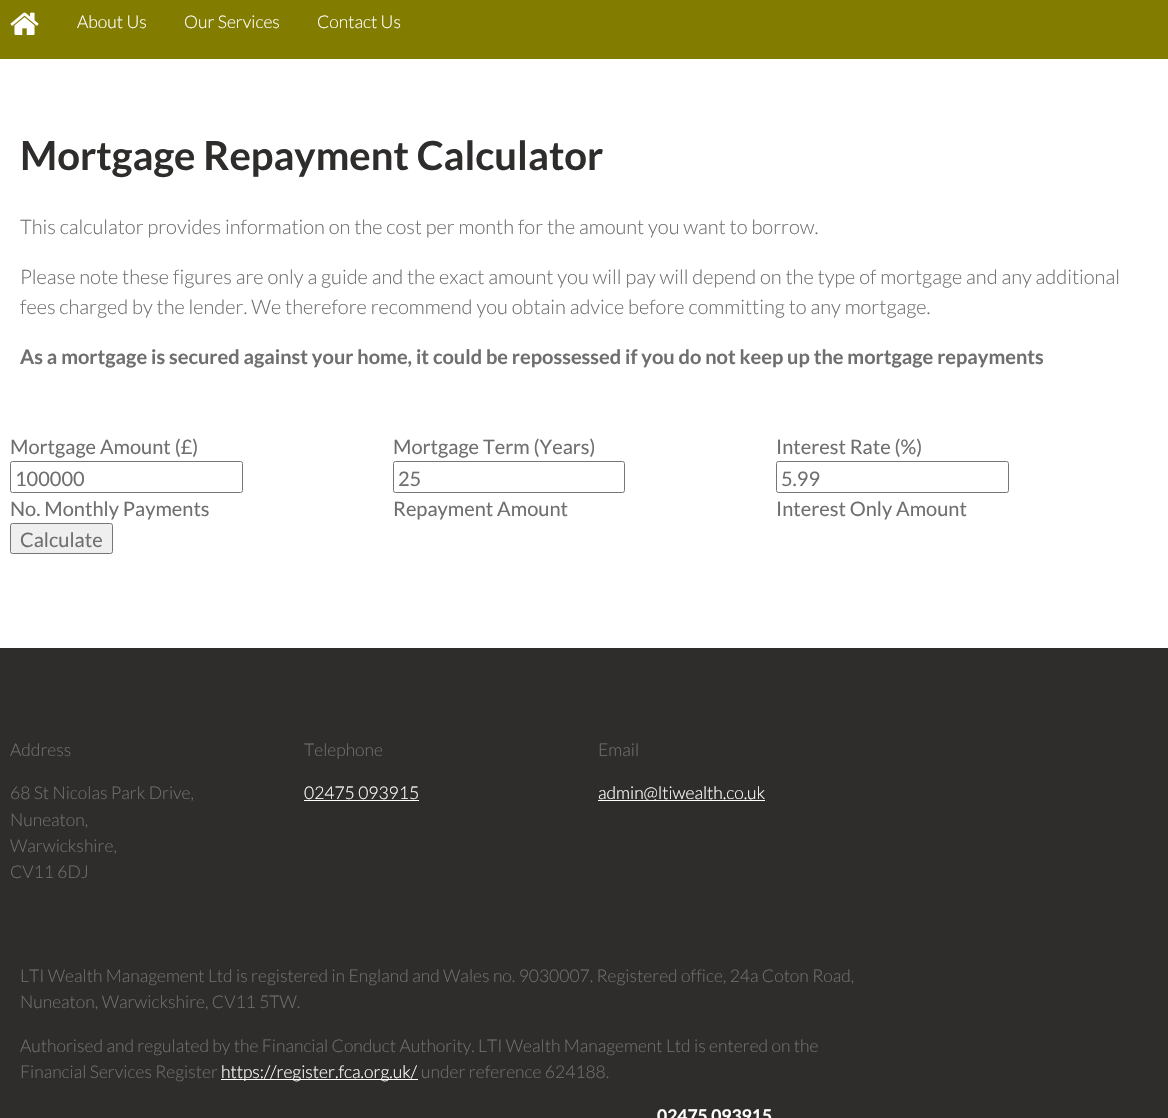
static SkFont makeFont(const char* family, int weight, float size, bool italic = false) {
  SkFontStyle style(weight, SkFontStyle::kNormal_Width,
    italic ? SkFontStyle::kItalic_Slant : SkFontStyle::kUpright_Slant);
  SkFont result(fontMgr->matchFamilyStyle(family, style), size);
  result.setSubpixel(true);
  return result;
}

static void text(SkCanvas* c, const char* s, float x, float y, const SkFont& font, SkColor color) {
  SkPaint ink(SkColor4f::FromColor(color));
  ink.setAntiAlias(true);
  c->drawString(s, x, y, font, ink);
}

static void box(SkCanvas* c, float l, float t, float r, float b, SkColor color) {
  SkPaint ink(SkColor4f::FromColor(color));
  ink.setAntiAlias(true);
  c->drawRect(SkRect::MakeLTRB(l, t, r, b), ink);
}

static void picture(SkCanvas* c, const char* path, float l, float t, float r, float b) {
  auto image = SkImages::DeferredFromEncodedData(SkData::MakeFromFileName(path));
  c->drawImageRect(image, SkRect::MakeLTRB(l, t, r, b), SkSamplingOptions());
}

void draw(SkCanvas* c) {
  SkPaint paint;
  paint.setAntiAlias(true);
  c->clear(0xffffffff);
  box(c, 0, 0, 1168, 59, 0xff827c00);
  picture(c, "img_01.png", 10, 12, 39, 35);
  SkFont face1 = makeFont("Lato", 300, 17.5f);
  text(c, "About Us", 77, 28, face1, 0xffffffff);
  text(c, "Our Services", 184, 28, face1, 0xffffffff);
  text(c, "Contact Us", 317, 28, face1, 0xffffffff);
  SkFont face2 = makeFont("Lato", 700, 40);
  text(c, "Mortgage Repayment Calculator", 20, 170, face2, 0xff2e2d2c);
  SkFont face3 = makeFont("Lato", 300, 20);
  text(c, "This calculator provides information on the cost per month for the amount you want to borrow.", 20, 234, face3, 0xff706f6f);
  text(c, "Please note these figures are only a guide and the exact amount you will pay will depend on the type of mortgage and any additional", 20, 284, face3, 0xff706f6f);
  text(c, "fees charged by the lender. We therefore recommend you obtain advice before committing to any mortgage.", 20, 314, face3, 0xff706f6f);
  SkFont face4 = makeFont("Lato", 700, 20);
  text(c, "As a mortgage is secured against your home, it could be repossessed if you do not keep up the mortgage repayments", 20, 364, face4, 0xff706f6f);
  SkFont face5 = makeFont("Lato", 400, 20);
  text(c, "Mortgage Amount (£)", 10, 454, face5, 0xff706f6f);
  text(c, "Mortgage Term (Years)", 393, 454, face5, 0xff706f6f);
  text(c, "Interest Rate (%)", 776, 454, face5, 0xff706f6f);
  paint.setStyle(SkPaint::kStroke_Style);
  paint.setStrokeWidth(1);
  paint.setColor(0xff767676);
  c->drawRoundRect(SkRect::MakeLTRB(10.5f, 461.5f, 242.5f, 492.5f), 2, 2, paint);
  text(c, "100000", 15, 486, face5, 0xff706f6f);
  c->drawRoundRect(SkRect::MakeLTRB(393.5f, 461.5f, 624.5f, 492.5f), 2, 2, paint);
  text(c, "25", 398, 486, face5, 0xff706f6f);
  c->drawRoundRect(SkRect::MakeLTRB(776.5f, 461.5f, 1008.5f, 492.5f), 2, 2, paint);
  text(c, "5.99", 781, 486, face5, 0xff706f6f);
  text(c, "No. Monthly Payments", 10, 516, face5, 0xff706f6f);
  text(c, "Repayment Amount", 393, 516, face5, 0xff706f6f);
  text(c, "Interest Only Amount", 776, 516, face5, 0xff706f6f);
  paint.setStyle(SkPaint::kFill_Style);
  paint.setColor(0xffefefef);
  c->drawRoundRect(SkRect::MakeLTRB(10.5f, 523.5f, 112.5f, 553.5f), 2, 2, paint);
  paint.setStyle(SkPaint::kStroke_Style);
  paint.setColor(0xff767676);
  c->drawRoundRect(SkRect::MakeLTRB(10.5f, 523.5f, 112.5f, 553.5f), 2, 2, paint);
  text(c, "Calculate", 20, 547, face5, 0xff706f6f);
  box(c, 0, 648, 1168, 1118, 0xff2e2d2c);
  text(c, "Address", 10, 756, face1, 0xff706f6f);
  text(c, "68 St Nicolas Park Drive,", 10, 799, face1, 0xff706f6f);
  text(c, "Nuneaton,", 10, 826, face1, 0xff706f6f);
  text(c, "Warwickshire,", 10, 852, face1, 0xff706f6f);
  text(c, "CV11 6DJ", 10, 878, face1, 0xff706f6f);
  text(c, "Telephone", 304, 756, face1, 0xff706f6f);
  text(c, "02475 093915", 304, 799, face1, 0xffffffff);
  box(c, 304, 800, 419, 801, 0xffffffff);
  text(c, "Email", 598, 756, face1, 0xff706f6f);
  box(c, 598, 800, 765, 801, 0xffffffff);
  text(c, "admin@ltiwealth.co.uk", 598, 799, face1, 0xffffffff);
  text(c, "LTI Wealth Management Ltd is registered in England and Wales no. 9030007. Registered office, 24a Coton Road,", 20, 982, face1, 0xff706f6f);
  text(c, "Nuneaton, Warwickshire, CV11 5TW.", 20, 1008, face1, 0xff706f6f);
  text(c, "Authorised and regulated by the Financial Conduct Authority. LTI Wealth Management Ltd is entered on the", 20, 1052, face1, 0xff706f6f);
  text(c, "Financial Services Register", 20, 1078, face1, 0xff706f6f);
  box(c, 221, 1079, 418, 1080, 0xffffffff);
  text(c, "https://register.fca.org.uk/", 221, 1078, face1, 0xffffffff);
  text(c, "under reference 624188.", 421, 1078, face1, 0xff706f6f);
  SkFont face6 = makeFont("Lato", 700, 17.5f);
  text(c, "02475 093915", 657, 1122, face6, 0xffffffff);
}
